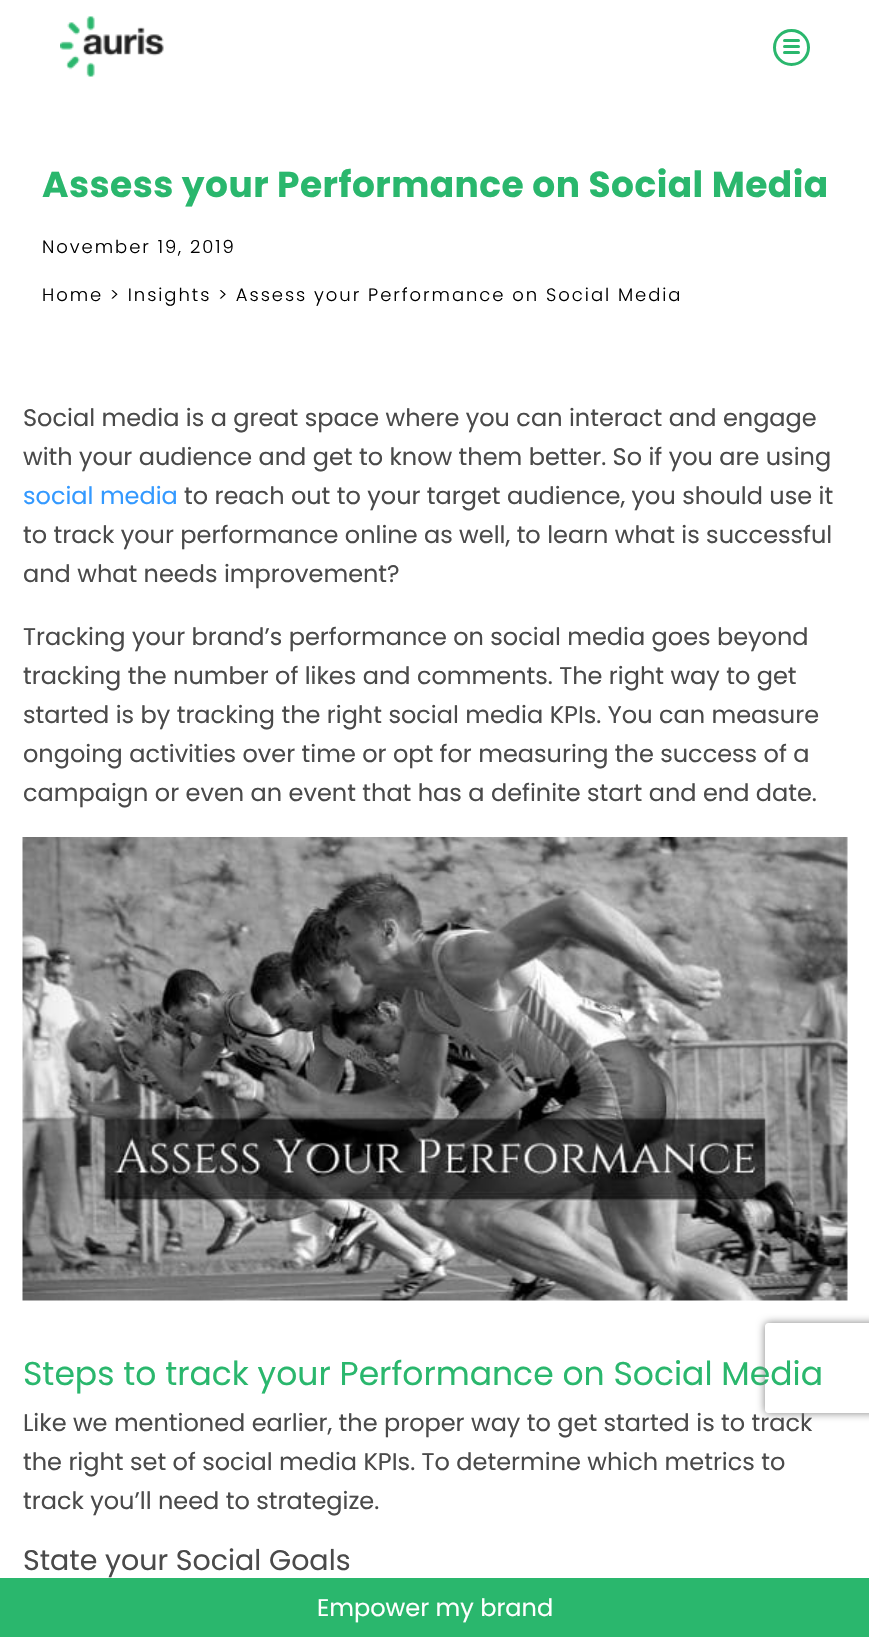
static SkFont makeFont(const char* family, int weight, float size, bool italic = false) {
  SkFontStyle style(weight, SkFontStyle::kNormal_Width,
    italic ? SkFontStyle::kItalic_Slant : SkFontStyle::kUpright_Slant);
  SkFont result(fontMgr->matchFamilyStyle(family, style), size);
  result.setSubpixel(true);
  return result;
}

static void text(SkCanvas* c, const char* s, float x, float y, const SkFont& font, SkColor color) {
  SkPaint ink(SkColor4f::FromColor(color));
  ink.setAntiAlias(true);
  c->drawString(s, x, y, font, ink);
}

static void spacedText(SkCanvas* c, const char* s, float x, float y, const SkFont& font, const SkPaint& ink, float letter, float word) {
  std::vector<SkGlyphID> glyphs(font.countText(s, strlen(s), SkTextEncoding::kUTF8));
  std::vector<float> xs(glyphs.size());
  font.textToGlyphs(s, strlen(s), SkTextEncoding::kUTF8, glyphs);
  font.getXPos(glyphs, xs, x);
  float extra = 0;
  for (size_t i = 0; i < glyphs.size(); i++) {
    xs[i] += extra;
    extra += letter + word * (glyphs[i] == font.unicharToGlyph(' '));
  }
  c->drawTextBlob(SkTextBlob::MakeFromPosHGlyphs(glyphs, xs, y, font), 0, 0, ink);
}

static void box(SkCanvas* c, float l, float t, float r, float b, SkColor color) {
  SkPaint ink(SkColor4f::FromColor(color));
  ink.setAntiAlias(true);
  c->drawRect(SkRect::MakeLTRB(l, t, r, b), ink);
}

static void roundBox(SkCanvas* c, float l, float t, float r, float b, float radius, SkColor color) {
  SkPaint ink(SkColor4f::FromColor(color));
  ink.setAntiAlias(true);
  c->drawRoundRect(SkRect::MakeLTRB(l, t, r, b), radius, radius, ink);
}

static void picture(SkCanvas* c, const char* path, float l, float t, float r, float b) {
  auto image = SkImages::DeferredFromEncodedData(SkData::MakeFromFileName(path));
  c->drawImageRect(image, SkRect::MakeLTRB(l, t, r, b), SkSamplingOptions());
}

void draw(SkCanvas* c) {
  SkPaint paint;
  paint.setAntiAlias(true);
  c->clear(0xffffffff);
  picture(c, "img_01.png", 60, 16, 164, 77);
  paint.setStyle(SkPaint::kStroke_Style);
  paint.setStrokeWidth(3);
  paint.setColor(0xff2ab76d);
  c->drawCircle(791.5f, 47.5f, 17, paint);
  roundBox(c, 783, 39, 800, 42, 1.5f, 0xff2ab76d);
  roundBox(c, 783, 45, 800, 48, 1.5f, 0xff2ab76d);
  roundBox(c, 783, 51, 800, 54, 1.5f, 0xff2ab76d);
  SkFont face1 = makeFont("Poppins", 700, 36);
  paint.setStyle(SkPaint::kFill_Style);
  spacedText(c, "Assess your Performance on Social Media", 42, 197, face1, paint, 0.45f, 0);
  SkFont face2 = makeFont("Poppins", 300, 18);
  paint.setColor(0xff000000);
  spacedText(c, "November 19, 2019", 42, 253, face2, paint, 1.95f, 0);
  spacedText(c, "Home > Insights > Assess your Performance on Social Media", 42, 301, face2, paint, 1.95f, 0);
  SkFont face3 = makeFont("Poppins", 400, 24);
  text(c, "Social media is a great space where you can interact and engage", 23, 426, face3, 0xff4a4a4a);
  text(c, "with your audience and get to know them better. So if you are using", 23, 465, face3, 0xff4a4a4a);
  text(c, "social media", 23, 504, face3, 0xff3399ff);
  text(c, "to reach out to your target audience, you should use it", 184, 504, face3, 0xff4a4a4a);
  text(c, "to track your performance online as well, to learn what is successful", 23, 543, face3, 0xff4a4a4a);
  text(c, "and what needs improvement?", 23, 582, face3, 0xff4a4a4a);
  text(c, "Tracking your brand’s performance on social media goes beyond", 23, 645, face3, 0xff4a4a4a);
  text(c, "tracking the number of likes and comments. The right way to get", 23, 684, face3, 0xff4a4a4a);
  text(c, "started is by tracking the right social media KPIs. You can measure", 23, 723, face3, 0xff4a4a4a);
  text(c, "ongoing activities over time or opt for measuring the success of a", 23, 762, face3, 0xff4a4a4a);
  text(c, "campaign or even an event that has a definite start and end date.", 23, 801, face3, 0xff4a4a4a);
  picture(c, "img_02.png", 22, 837, 848, 1301);
  SkFont face4 = makeFont("Poppins", 400, 33);
  text(c, "Steps to track your Performance on Social Media", 23, 1385, face4, 0xff2ab76d);
  text(c, "Like we mentioned earlier, the proper way to get started is to track", 23, 1431, face3, 0xff4a4a4a);
  text(c, "the right set of social media KPIs. To determine which metrics to", 23, 1470, face3, 0xff4a4a4a);
  text(c, "track you’ll need to strategize.", 23, 1509, face3, 0xff4a4a4a);
  SkFont face5 = makeFont("Poppins", 400, 28.5f);
  text(c, "State your Social Goals", 23, 1570, face5, 0xff4a4a4a);
  c->save();
  c->clipPath(SkPathBuilder(SkPathFillType::kEvenOdd).moveTo(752, 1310).lineTo(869, 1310).lineTo(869, 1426).lineTo(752, 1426).close().moveTo(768, 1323).lineTo(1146, 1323).cubicTo(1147.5f, 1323, 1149, 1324.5f, 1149, 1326).lineTo(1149, 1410).cubicTo(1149, 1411.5f, 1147.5f, 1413, 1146, 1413).lineTo(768, 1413).cubicTo(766.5f, 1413, 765, 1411.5f, 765, 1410).lineTo(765, 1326).cubicTo(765, 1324.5f, 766.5f, 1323, 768, 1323).close().detach(), true);
  paint.setColor(0xff808080);
  paint.setMaskFilter(SkMaskFilter::MakeBlur(kNormal_SkBlurStyle, 4));
  c->drawRoundRect(SkRect::MakeLTRB(765, 1323, 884, 1413), 3, 3, paint);
  paint.setMaskFilter(nullptr);
  c->restore();
  box(c, 0, 1578, 869, 1637, 0xff2ab76d);
  text(c, "Empower my brand", 317, 1616, face3, 0xffffffff);
}
